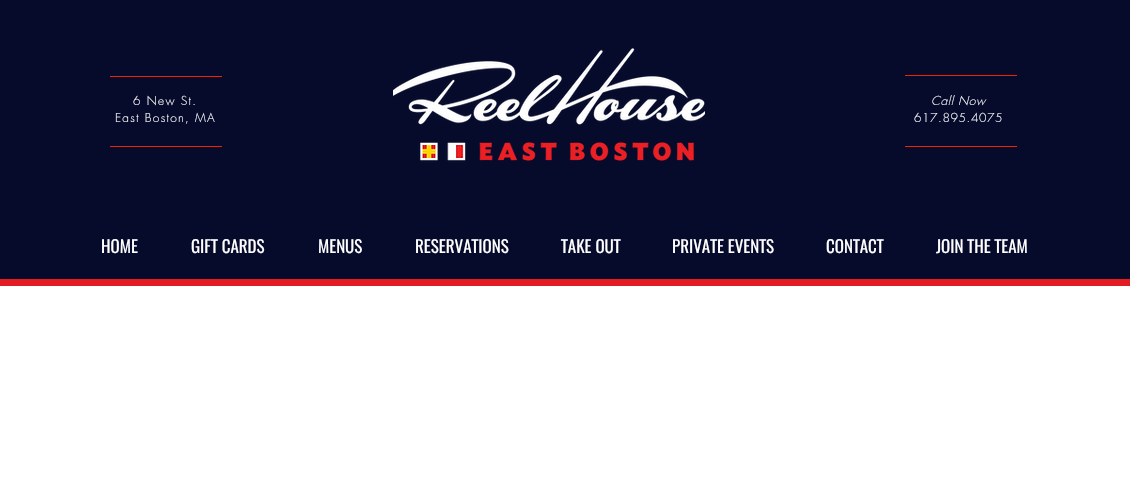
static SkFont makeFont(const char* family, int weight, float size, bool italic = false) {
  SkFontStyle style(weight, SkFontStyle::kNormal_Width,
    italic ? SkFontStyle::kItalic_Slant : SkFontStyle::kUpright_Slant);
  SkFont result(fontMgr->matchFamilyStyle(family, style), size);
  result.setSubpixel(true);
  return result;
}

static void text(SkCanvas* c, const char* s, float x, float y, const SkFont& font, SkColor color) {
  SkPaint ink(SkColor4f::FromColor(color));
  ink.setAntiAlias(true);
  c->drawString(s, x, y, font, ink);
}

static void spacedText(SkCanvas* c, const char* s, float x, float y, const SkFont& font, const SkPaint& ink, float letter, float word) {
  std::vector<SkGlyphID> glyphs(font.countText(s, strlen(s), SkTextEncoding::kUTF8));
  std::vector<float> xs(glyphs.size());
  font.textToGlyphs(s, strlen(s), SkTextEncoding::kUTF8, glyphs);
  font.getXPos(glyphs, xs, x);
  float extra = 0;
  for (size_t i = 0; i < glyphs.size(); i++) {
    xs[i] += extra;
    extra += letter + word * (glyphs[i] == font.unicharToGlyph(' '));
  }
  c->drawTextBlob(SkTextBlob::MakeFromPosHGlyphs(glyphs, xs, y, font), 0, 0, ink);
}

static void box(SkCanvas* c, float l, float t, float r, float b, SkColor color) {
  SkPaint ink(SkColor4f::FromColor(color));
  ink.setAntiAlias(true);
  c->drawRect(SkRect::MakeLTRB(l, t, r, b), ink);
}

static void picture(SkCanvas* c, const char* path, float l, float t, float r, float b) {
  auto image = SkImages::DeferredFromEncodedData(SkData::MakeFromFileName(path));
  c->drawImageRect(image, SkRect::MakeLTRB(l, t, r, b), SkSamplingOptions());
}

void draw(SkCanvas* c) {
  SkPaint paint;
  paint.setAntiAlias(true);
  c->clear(0xffffffff);
  box(c, 0, 0, 1130, 279, 0xff060a2b);
  box(c, 0, 279, 1130, 286, 0xffe21c21);
  picture(c, "img_01.png", 393, 48, 705, 163);
  box(c, 905, 75, 1017, 76, 0xfff71f02);
  box(c, 110, 76, 222, 77, 0xfff71f02);
  SkFont face1 = makeFont("futura", 300, 12);
  paint.setColor(0xffffffff);
  spacedText(c, "6 New St.", 133, 105, face1, paint, 1.25f, 0);
  spacedText(c, "East Boston, MA", 115, 122, face1, paint, 1.25f, 0);
  SkFont face2 = makeFont("futura", 300, 12, true);
  spacedText(c, "Call Now", 931, 105, face2, paint, 0.6f, 0);
  spacedText(c, "617.895.4075", 914, 122, face1, paint, 0.6f, 0);
  box(c, 110, 146, 222, 147, 0xfff71f02);
  box(c, 905, 146, 1017, 147, 0xfff71f02);
  SkFont face3 = makeFont("Oswald", 400, 17);
  text(c, "HOME", 101, 253, face3, 0xffffffff);
  text(c, "GIFT CARDS", 191, 253, face3, 0xffffffff);
  text(c, "MENUS", 318, 253, face3, 0xffffffff);
  text(c, "RESERVATIONS", 415, 253, face3, 0xffffffff);
  text(c, "TAKE OUT", 561, 253, face3, 0xffffffff);
  text(c, "PRIVATE EVENTS", 672, 253, face3, 0xffffffff);
  text(c, "CONTACT", 826, 253, face3, 0xffffffff);
  text(c, "JOIN THE TEAM", 936, 253, face3, 0xffffffff);
}
